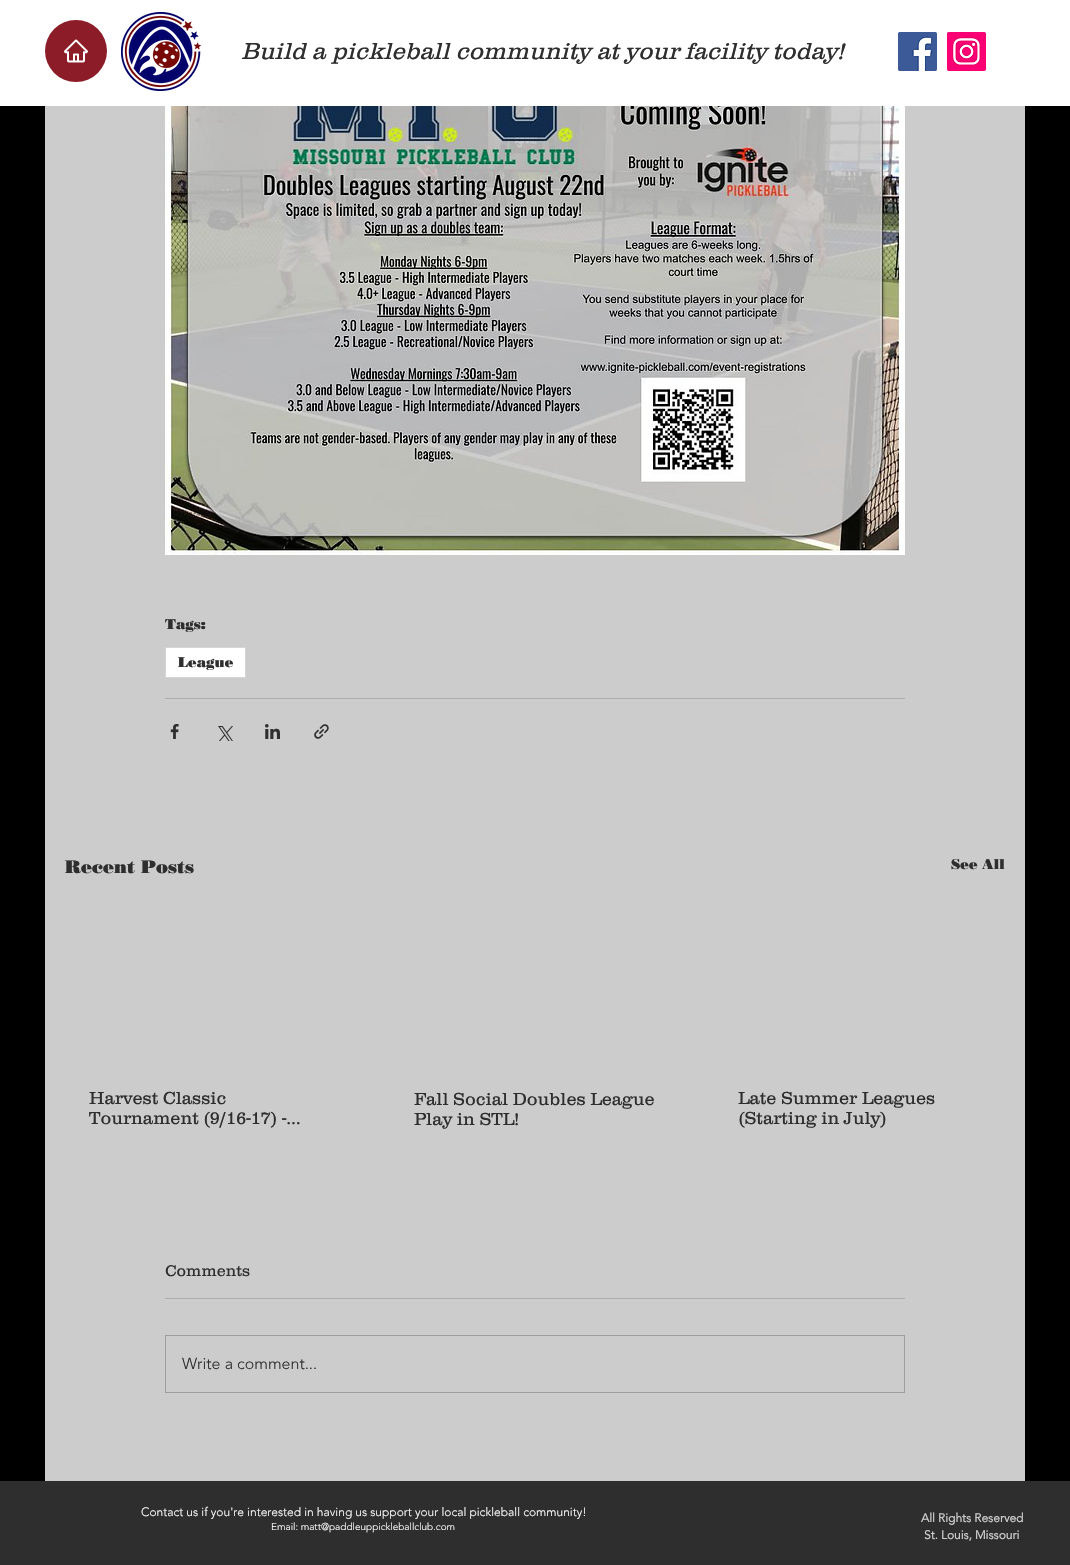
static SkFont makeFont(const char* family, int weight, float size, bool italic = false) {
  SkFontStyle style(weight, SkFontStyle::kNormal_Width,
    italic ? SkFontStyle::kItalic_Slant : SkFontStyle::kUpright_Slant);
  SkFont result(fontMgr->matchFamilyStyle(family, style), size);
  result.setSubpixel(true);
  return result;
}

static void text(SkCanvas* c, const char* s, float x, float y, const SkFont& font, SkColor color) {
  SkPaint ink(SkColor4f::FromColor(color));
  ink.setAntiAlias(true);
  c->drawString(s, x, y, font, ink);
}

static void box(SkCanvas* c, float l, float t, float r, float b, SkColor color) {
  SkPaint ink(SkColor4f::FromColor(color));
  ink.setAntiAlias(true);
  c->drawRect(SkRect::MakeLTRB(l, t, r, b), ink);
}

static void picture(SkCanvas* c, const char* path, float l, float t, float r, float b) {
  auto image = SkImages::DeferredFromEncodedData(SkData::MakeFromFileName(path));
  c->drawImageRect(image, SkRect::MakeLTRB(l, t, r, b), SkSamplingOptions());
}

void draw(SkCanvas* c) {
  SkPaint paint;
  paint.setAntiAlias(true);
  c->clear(0xff000000);
  box(c, 0, 0, 1070, 106, 0xffffffff);
  paint.setColor(0xff8b1c28);
  c->drawCircle(76, 51, 31, paint);
  picture(c, "img_01.png", 64, 39, 88, 63);
  picture(c, "img_02.png", 121, 12, 201, 91);
  SkFont face1 = makeFont("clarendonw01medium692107", 300, 24, true);
  text(c, "Build a pickleball community at your facility today!", 241, 59, face1, 0xff2f2e2e);
  picture(c, "img_03.png", 898, 32, 937, 71);
  picture(c, "img_04.png", 947, 32, 986, 71);
  box(c, 45, 106, 1025, 1481, 0xffcccccc);
  picture(c, "img_05.png", 165, 106, 905, 555);
  SkFont face2 = makeFont("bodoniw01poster", 900, 14);
  text(c, "Tags:", 165, 629, face2, 0xff2f2e2e);
  paint.setColor(0xffffffff);
  c->drawRect(SkRect::MakeLTRB(165.5f, 647.5f, 245.5f, 677.5f), paint);
  paint.setStyle(SkPaint::kStroke_Style);
  paint.setStrokeWidth(1);
  paint.setColor(0xffd5d5d5);
  c->drawRect(SkRect::MakeLTRB(165.5f, 647.5f, 245.5f, 677.5f), paint);
  text(c, "League", 178, 667, face2, 0xff2f2e2e);
  box(c, 165, 698, 905, 699, 0xffadacac);
  picture(c, "img_06.png", 170, 724, 179, 739);
  picture(c, "img_07.png", 218, 726, 233, 741);
  picture(c, "img_08.png", 265, 724, 280, 739);
  picture(c, "img_09.png", 314, 724, 329, 739);
  SkFont face3 = makeFont("bodoniw01poster", 900, 18);
  text(c, "Recent Posts", 65, 873, face3, 0xff2f2e2e);
  text(c, "See All", 951, 869, face2, 0xff2f2e2e);
  SkFont face4 = makeFont("clarendonw01medium692107", 300, 18);
  text(c, "Harvest Classic", 89, 1104, face4, 0xff2f2e2e);
  text(c, "Tournament (9/16-17) -…", 89, 1124, face4, 0xff2f2e2e);
  text(c, "Fall Social Doubles League", 414, 1105, face4, 0xff2f2e2e);
  text(c, "Play in STL!", 414, 1125, face4, 0xff2f2e2e);
  text(c, "Late Summer Leagues", 738, 1104, face4, 0xff2f2e2e);
  text(c, "(Starting in July)", 738, 1124, face4, 0xff2f2e2e);
  SkFont face5 = makeFont("clarendonw01medium692107", 300, 16);
  text(c, "Comments", 165, 1276, face5, 0xff2f2e2e);
  box(c, 165, 1298, 905, 1299, 0xffadacac);
  paint.setColor(0xff9d9d9d);
  c->drawRect(SkRect::MakeLTRB(165.5f, 1335.5f, 904.5f, 1392.5f), paint);
  SkFont face6 = makeFont("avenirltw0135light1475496", 300, 16);
  text(c, "Write a comment...", 182, 1369, face6, 0xff2f2e2e);
  box(c, 0, 1481, 1070, 1565, 0xff2f2e2e);
  SkFont face7 = makeFont("avenirltw0135light1475496", 300, 12);
  text(c, "Contact us if you're interested in having us support your local pickleball community!", 141, 1516, face7, 0xffffffff);
  SkFont face8 = makeFont("avenirltw0135light1475496", 300, 10);
  text(c, "Email: matt@paddleuppickleballclub.com", 271, 1530, face8, 0xffffffff);
  SkFont face9 = makeFont("avenirltw0135light1475496", 700, 12);
  text(c, "All Rights Reserved", 921, 1522, face9, 0xffcccccc);
  text(c, "St. Louis, Missouri", 924, 1539, face9, 0xffcccccc);
}
